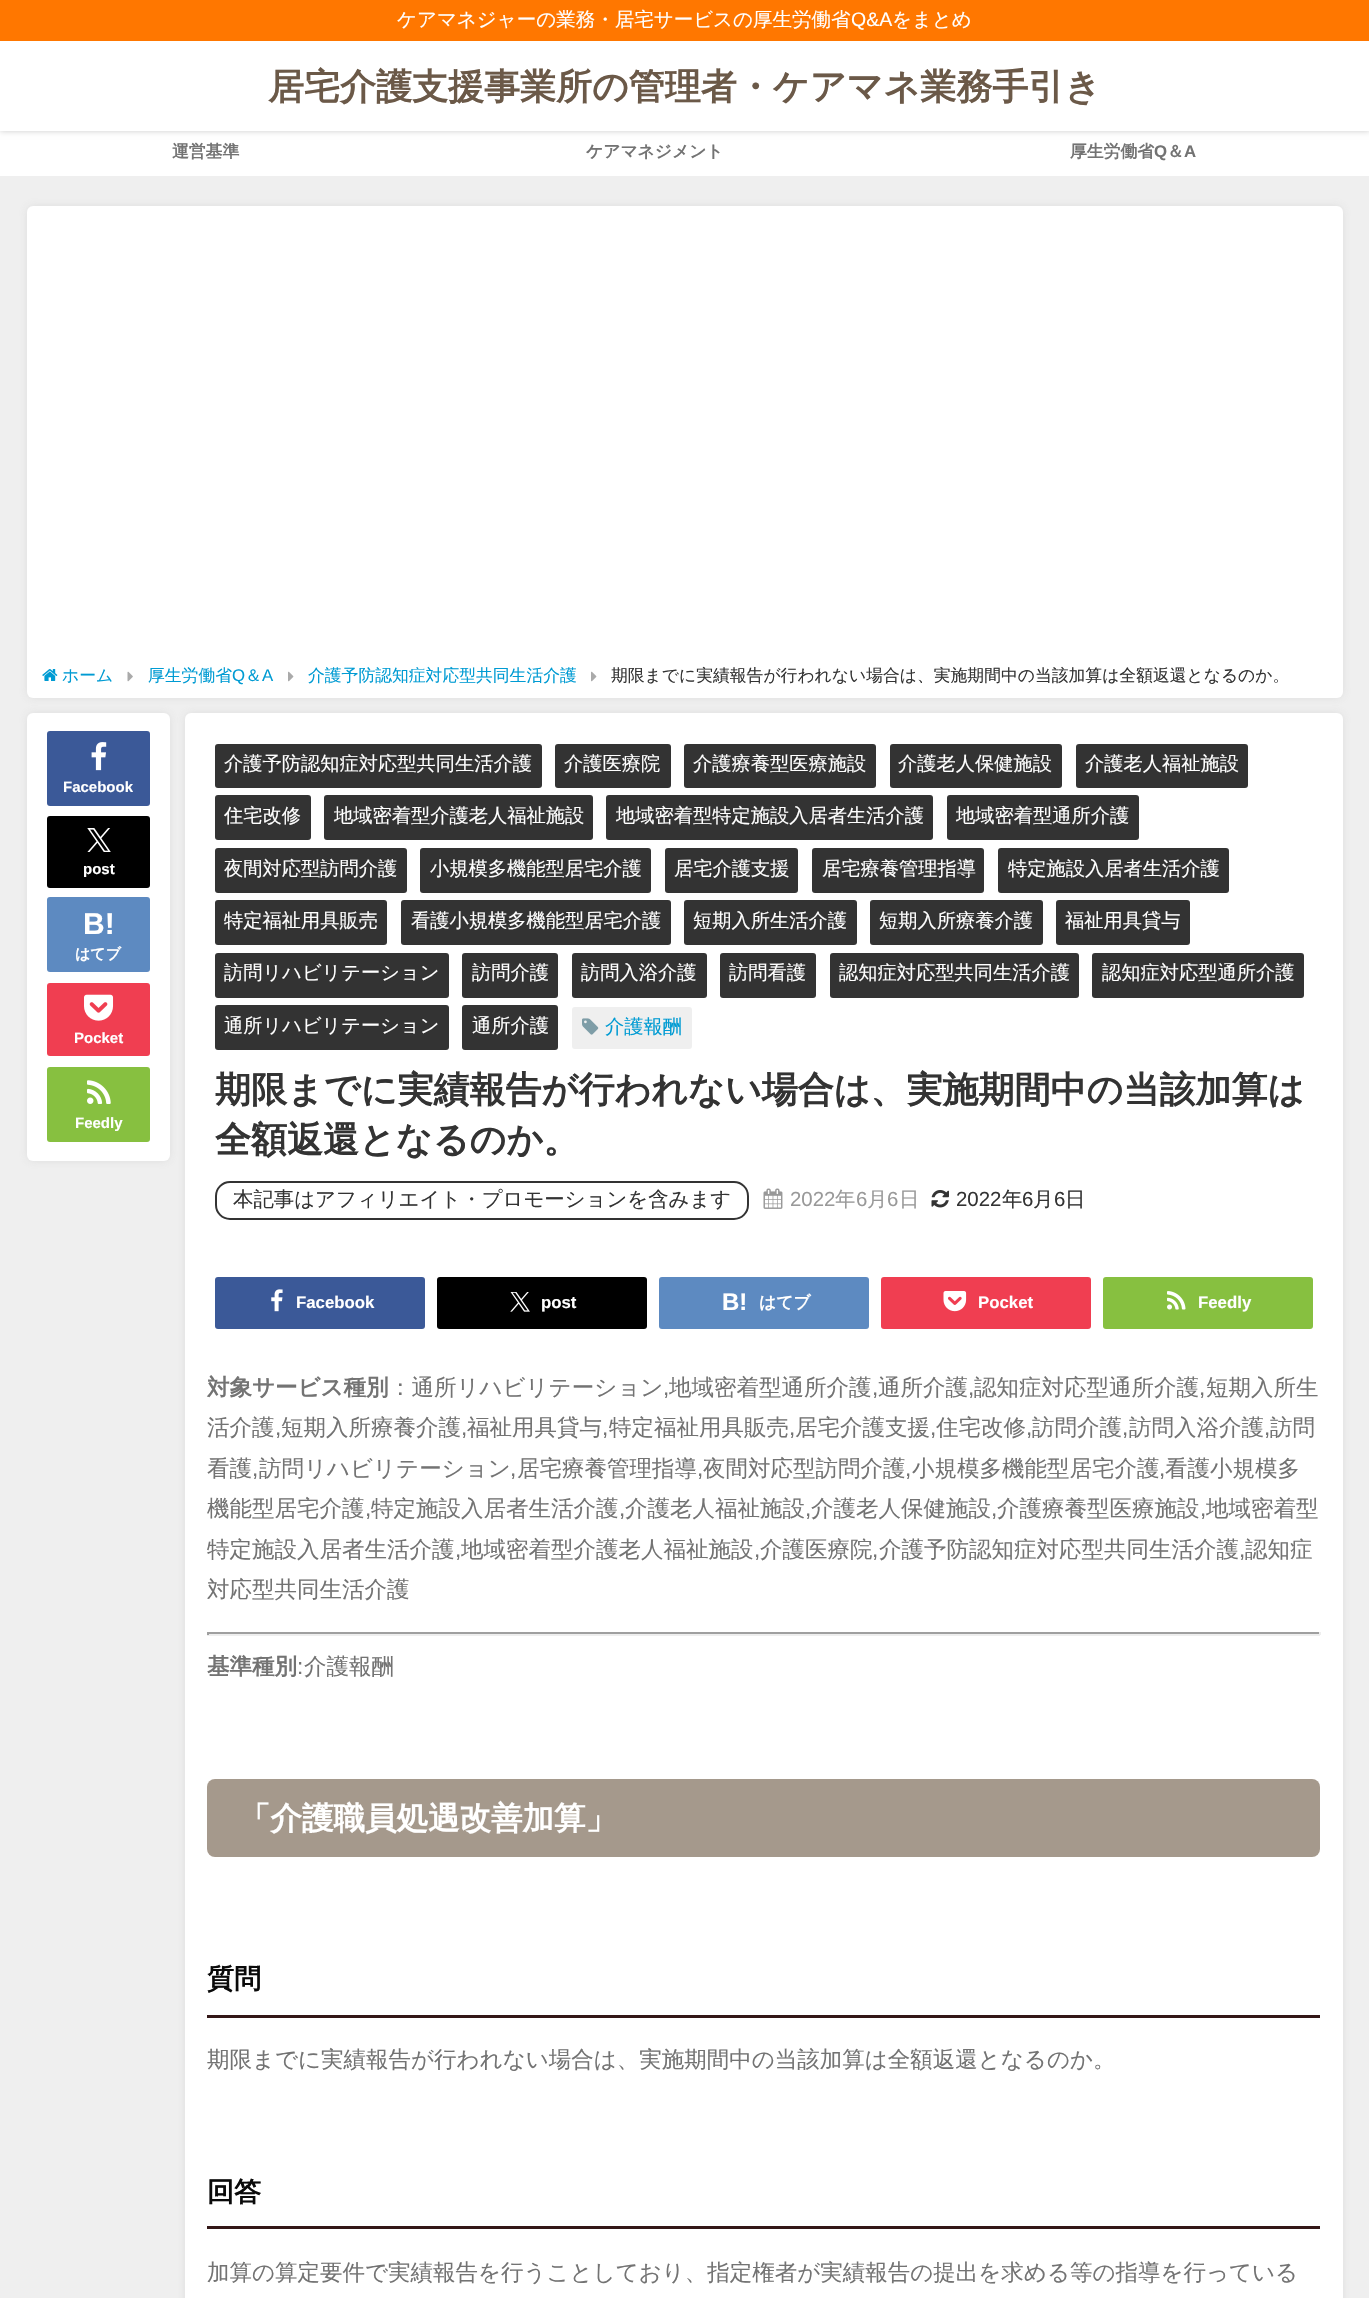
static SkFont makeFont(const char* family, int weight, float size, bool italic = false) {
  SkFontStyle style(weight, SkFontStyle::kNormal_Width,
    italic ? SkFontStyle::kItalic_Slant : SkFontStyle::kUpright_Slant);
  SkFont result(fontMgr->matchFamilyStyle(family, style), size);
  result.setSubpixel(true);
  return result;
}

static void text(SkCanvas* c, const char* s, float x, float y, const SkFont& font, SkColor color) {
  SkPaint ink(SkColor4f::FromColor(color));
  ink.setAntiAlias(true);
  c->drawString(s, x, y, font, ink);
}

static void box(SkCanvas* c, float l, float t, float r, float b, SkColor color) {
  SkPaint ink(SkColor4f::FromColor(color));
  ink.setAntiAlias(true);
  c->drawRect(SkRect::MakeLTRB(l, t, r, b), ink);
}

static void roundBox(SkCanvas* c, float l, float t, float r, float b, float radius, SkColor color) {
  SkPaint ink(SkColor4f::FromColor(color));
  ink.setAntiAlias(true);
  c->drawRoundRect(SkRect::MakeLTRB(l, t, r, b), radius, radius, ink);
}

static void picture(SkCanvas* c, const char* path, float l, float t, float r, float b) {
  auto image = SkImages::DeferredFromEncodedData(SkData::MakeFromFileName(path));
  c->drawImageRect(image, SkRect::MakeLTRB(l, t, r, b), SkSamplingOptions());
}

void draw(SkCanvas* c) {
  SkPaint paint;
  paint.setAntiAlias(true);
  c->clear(0xffefefef);
  box(c, 0, 131, 1369, 176, 0xffffffff);
  paint.setColor(0x33000000);
  paint.setMaskFilter(SkMaskFilter::MakeBlur(kNormal_SkBlurStyle, 3));
  c->drawRect(SkRect::MakeLTRB(0, 0, 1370, 131), paint);
  paint.setMaskFilter(nullptr);
  box(c, 0, 41, 1369, 131, 0xffffffff);
  box(c, 0, 0, 1369, 41, 0xffff7700);
  SkFont face1 = makeFont("WenQuanYi Zen Hei", 500, 19.5f);
  text(c, "ケアマネジャーの業務・居宅サービスの厚生労働省", 397, 26, face1, 0xffffffff);
  SkFont face2 = makeFont("Liberation Sans", 400, 19.5f);
  text(c, "Q&A", 851, 26, face2, 0xffffffff);
  text(c, "をまとめ", 892, 26, face1, 0xffffffff);
  SkFont face3 = makeFont("WenQuanYi Zen Hei", 700, 36);
  text(c, "居宅介護支援事業所の管理者・ケアマネ業務手引き", 268, 99, face3, 0xff6b5948);
  SkFont face4 = makeFont("WenQuanYi Zen Hei", 700, 16.8f);
  text(c, "運営基準", 172, 157, face4, 0xff737373);
  text(c, "ケアマネジメント", 586, 157, face4, 0xff737373);
  text(c, "厚生労働省", 1070, 157, face4, 0xff737373);
  SkFont face5 = makeFont("Liberation Sans", 700, 16.8f);
  text(c, "Q", 1154, 157, face5, 0xff737373);
  text(c, "＆", 1167, 157, face4, 0xff737373);
  text(c, "A", 1184, 157, face5, 0xff737373);
  paint.setColor(0x33969696);
  paint.setMaskFilter(SkMaskFilter::MakeBlur(kNormal_SkBlurStyle, 4));
  c->drawRoundRect(SkRect::MakeLTRB(27, 206, 1343, 698), 6, 6, paint);
  paint.setMaskFilter(nullptr);
  roundBox(c, 27, 206, 1343, 698, 6, 0xffffffff);
  picture(c, "img_01.png", 42, 669, 58, 681);
  SkFont face6 = makeFont("WenQuanYi Zen Hei", 500, 16.8f);
  text(c, "ホーム", 62, 681, face6, 0xff009bd3);
  picture(c, "img_02.png", 127, 671, 133, 682);
  text(c, "厚生労働省", 148, 681, face6, 0xff009bd3);
  SkFont face7 = makeFont("Liberation Sans", 400, 16.8f);
  text(c, "Q", 232, 681, face7, 0xff009bd3);
  text(c, "＆", 245, 681, face6, 0xff009bd3);
  text(c, "A", 262, 681, face7, 0xff009bd3);
  picture(c, "img_03.png", 288, 671, 294, 682);
  text(c, "介護予防認知症対応型共同生活介護", 308, 681, face6, 0xff009bd3);
  picture(c, "img_03.png", 591, 671, 597, 682);
  text(c, "期限までに実績報告が行われない場合は、実施期間中の当該加算は全額返還となるのか。", 611, 681, face6, 0xff333333);
  paint.setMaskFilter(SkMaskFilter::MakeBlur(kNormal_SkBlurStyle, 4));
  c->drawRoundRect(SkRect::MakeLTRB(27, 713, 170, 1161), 6, 6, paint);
  paint.setMaskFilter(nullptr);
  roundBox(c, 27, 713, 170, 1161, 6, 0xffffffff);
  roundBox(c, 47, 731, 150, 806, 3, 0xff3b5998);
  picture(c, "img_04.png", 91, 742, 107, 771);
  SkFont face8 = makeFont("Liberation Sans", 700, 15);
  text(c, "Facebook", 63, 792, face8, 0xffffffff);
  roundBox(c, 47, 816, 150, 888, 3, 0xff000000);
  picture(c, "img_05.png", 87, 828, 111, 852);
  text(c, "post", 83, 874, face8, 0xffffffff);
  roundBox(c, 47, 897, 150, 972, 3, 0xff5d8ac1);
  SkFont face9 = makeFont("Liberation Sans", 700, 30);
  text(c, "B!", 83, 934, face9, 0xffffffff);
  SkFont face10 = makeFont("WenQuanYi Zen Hei", 700, 15);
  text(c, "はてブ", 75, 959, face10, 0xffffffff);
  roundBox(c, 47, 983, 150, 1056, 3, 0xfff03e51);
  picture(c, "img_06.png", 84, 994, 114, 1021);
  text(c, "Pocket", 74, 1043, face8, 0xffffffff);
  roundBox(c, 47, 1067, 150, 1142, 3, 0xff87c040);
  picture(c, "img_07.png", 87, 1080, 111, 1104);
  text(c, "Feedly", 75, 1128, face8, 0xffffffff);
  paint.setMaskFilter(SkMaskFilter::MakeBlur(kNormal_SkBlurStyle, 4));
  c->drawRoundRect(SkRect::MakeLTRB(185, 713, 1343, 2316), 6, 6, paint);
  paint.setMaskFilter(nullptr);
  roundBox(c, 185, 713, 1343, 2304, 6, 0xffffffff);
  roundBox(c, 215, 744, 542, 788, 3, 0xff333333);
  SkFont face11 = makeFont("WenQuanYi Zen Hei", 500, 19.25f);
  text(c, "介護予防認知症対応型共同生活介護", 224, 770, face11, 0xffffffff);
  roundBox(c, 555, 744, 671, 788, 3, 0xff333333);
  text(c, "介護医療院", 564, 770, face11, 0xffffffff);
  roundBox(c, 684, 744, 876, 788, 3, 0xff333333);
  text(c, "介護療養型医療施設", 693, 770, face11, 0xffffffff);
  roundBox(c, 890, 744, 1062, 788, 3, 0xff333333);
  text(c, "介護老人保健施設", 898, 770, face11, 0xffffffff);
  roundBox(c, 1076, 744, 1248, 788, 3, 0xff333333);
  text(c, "介護老人福祉施設", 1085, 770, face11, 0xffffffff);
  roundBox(c, 215, 795, 311, 840, 3, 0xff333333);
  text(c, "住宅改修", 224, 822, face11, 0xffffffff);
  roundBox(c, 324, 795, 593, 840, 3, 0xff333333);
  text(c, "地域密着型介護老人福祉施設", 334, 822, face11, 0xffffffff);
  roundBox(c, 606, 795, 933, 840, 3, 0xff333333);
  text(c, "地域密着型特定施設入居者生活介護", 616, 822, face11, 0xffffffff);
  roundBox(c, 947, 795, 1139, 840, 3, 0xff333333);
  text(c, "地域密着型通所介護", 956, 822, face11, 0xffffffff);
  roundBox(c, 215, 848, 407, 893, 3, 0xff333333);
  text(c, "夜間対応型訪問介護", 224, 875, face11, 0xffffffff);
  roundBox(c, 420, 848, 651, 893, 3, 0xff333333);
  text(c, "小規模多機能型居宅介護", 430, 875, face11, 0xffffffff);
  roundBox(c, 665, 848, 798, 893, 3, 0xff333333);
  text(c, "居宅介護支援", 674, 875, face11, 0xffffffff);
  roundBox(c, 812, 848, 984, 893, 3, 0xff333333);
  text(c, "居宅療養管理指導", 822, 875, face11, 0xffffffff);
  roundBox(c, 998, 848, 1229, 893, 3, 0xff333333);
  text(c, "特定施設入居者生活介護", 1008, 875, face11, 0xffffffff);
  roundBox(c, 215, 900, 387, 945, 3, 0xff333333);
  text(c, "特定福祉用具販売", 224, 927, face11, 0xffffffff);
  roundBox(c, 401, 900, 671, 945, 3, 0xff333333);
  text(c, "看護小規模多機能型居宅介護", 411, 927, face11, 0xffffffff);
  roundBox(c, 684, 900, 857, 945, 3, 0xff333333);
  text(c, "短期入所生活介護", 693, 927, face11, 0xffffffff);
  roundBox(c, 870, 900, 1043, 945, 3, 0xff333333);
  text(c, "短期入所療養介護", 879, 927, face11, 0xffffffff);
  roundBox(c, 1056, 900, 1190, 945, 3, 0xff333333);
  text(c, "福祉用具貸与", 1065, 927, face11, 0xffffffff);
  roundBox(c, 215, 953, 449, 998, 3, 0xff333333);
  text(c, "訪問リハビリテーション", 224, 979, face11, 0xffffffff);
  roundBox(c, 462, 953, 558, 998, 3, 0xff333333);
  text(c, "訪問介護", 472, 979, face11, 0xffffffff);
  roundBox(c, 572, 953, 707, 998, 3, 0xff333333);
  text(c, "訪問入浴介護", 581, 979, face11, 0xffffffff);
  roundBox(c, 720, 953, 816, 998, 3, 0xff333333);
  text(c, "訪問看護", 729, 979, face11, 0xffffffff);
  roundBox(c, 830, 953, 1079, 998, 3, 0xff333333);
  text(c, "認知症対応型共同生活介護", 839, 979, face11, 0xffffffff);
  roundBox(c, 1092, 953, 1304, 998, 3, 0xff333333);
  text(c, "認知症対応型通所介護", 1102, 979, face11, 0xffffffff);
  roundBox(c, 215, 1005, 449, 1050, 3, 0xff333333);
  text(c, "通所リハビリテーション", 224, 1032, face11, 0xffffffff);
  roundBox(c, 462, 1005, 558, 1050, 3, 0xff333333);
  text(c, "通所介護", 472, 1032, face11, 0xffffffff);
  roundBox(c, 572, 1007, 692, 1049, 3, 0xffefefef);
  picture(c, "img_08.png", 582, 1018, 599, 1035);
  text(c, "介護報酬", 605, 1033, face11, 0xff009bd3);
  text(c, "期限までに実績報告が行われない場合は、実施期間中の当該加算は", 215, 1102, face3, 0xff333333);
  text(c, "全額返還となるのか。", 215, 1152, face3, 0xff333333);
  paint.setStyle(SkPaint::kStroke_Style);
  paint.setStrokeWidth(2);
  paint.setColor(0xff333333);
  c->drawRoundRect(SkRect::MakeLTRB(216, 1182, 748, 1219), 14, 14, paint);
  SkFont face12 = makeFont("WenQuanYi Zen Hei", 500, 20.4f);
  text(c, "本記事はアフィリエイト・プロモーションを含みます", 233, 1206, face12, 0xff333333);
  picture(c, "img_09.png", 763, 1188, 783, 1209);
  SkFont face13 = makeFont("Liberation Sans", 400, 20.4f);
  text(c, "2022", 790, 1206, face13, 0xff999999);
  text(c, "年", 835, 1206, face12, 0xff999999);
  text(c, "6", 856, 1206, face13, 0xff999999);
  text(c, "月", 867, 1206, face12, 0xff999999);
  text(c, "6", 887, 1206, face13, 0xff999999);
  text(c, "日", 899, 1206, face12, 0xff999999);
  picture(c, "img_10.png", 931, 1190, 949, 1208);
  text(c, "2022", 956, 1206, face13, 0xff333333);
  text(c, "年", 1002, 1206, face12, 0xff333333);
  text(c, "6", 1022, 1206, face13, 0xff333333);
  text(c, "月", 1033, 1206, face12, 0xff333333);
  text(c, "6", 1054, 1206, face13, 0xff333333);
  text(c, "日", 1065, 1206, face12, 0xff333333);
  roundBox(c, 215, 1277, 425, 1329, 3, 0xff3b5998);
  picture(c, "img_11.png", 271, 1289, 283, 1312);
  text(c, "Facebook", 296, 1308, face5, 0xffffffff);
  roundBox(c, 437, 1277, 647, 1329, 3, 0xff000000);
  picture(c, "img_12.png", 510, 1292, 530, 1312);
  text(c, "post", 541, 1308, face5, 0xffffffff);
  roundBox(c, 659, 1277, 869, 1329, 3, 0xff5d8ac1);
  SkFont face14 = makeFont("Liberation Sans", 700, 24);
  text(c, "B!", 722, 1310, face14, 0xffffffff);
  text(c, "はてブ", 759, 1308, face4, 0xffffffff);
  roundBox(c, 881, 1277, 1091, 1329, 3, 0xfff03e51);
  picture(c, "img_13.png", 943, 1291, 967, 1312);
  text(c, "Pocket", 978, 1308, face5, 0xffffffff);
  roundBox(c, 1103, 1277, 1313, 1329, 3, 0xff87c040);
  picture(c, "img_14.png", 1167, 1291, 1186, 1310);
  text(c, "Feedly", 1198, 1308, face5, 0xffffffff);
  SkFont face15 = makeFont("WenQuanYi Zen Hei", 700, 22.5f);
  text(c, "対象サービス種別", 207, 1395, face15, 0xff737373);
  SkFont face16 = makeFont("WenQuanYi Zen Hei", 500, 22.5f);
  text(c, "：通所リハビリテーション", 389, 1395, face16, 0xff737373);
  SkFont face17 = makeFont("Liberation Sans", 400, 22.5f);
  text(c, ",", 663, 1395, face17, 0xff737373);
  text(c, "地域密着型通所介護", 669, 1395, face16, 0xff737373);
  text(c, ",", 872, 1395, face17, 0xff737373);
  text(c, "通所介護", 878, 1395, face16, 0xff737373);
  text(c, ",", 968, 1395, face17, 0xff737373);
  text(c, "認知症対応型通所介護", 974, 1395, face16, 0xff737373);
  text(c, ",", 1199, 1395, face17, 0xff737373);
  text(c, "短期入所生", 1206, 1395, face16, 0xff737373);
  text(c, "活介護", 207, 1435, face16, 0xff737373);
  text(c, ",", 275, 1435, face17, 0xff737373);
  text(c, "短期入所療養介護", 281, 1435, face16, 0xff737373);
  text(c, ",", 461, 1435, face17, 0xff737373);
  text(c, "福祉用具貸与", 467, 1435, face16, 0xff737373);
  text(c, ",", 602, 1435, face17, 0xff737373);
  text(c, "特定福祉用具販売", 609, 1435, face16, 0xff737373);
  text(c, ",", 789, 1435, face17, 0xff737373);
  text(c, "居宅介護支援", 795, 1435, face16, 0xff737373);
  text(c, ",", 930, 1435, face17, 0xff737373);
  text(c, "住宅改修", 936, 1435, face16, 0xff737373);
  text(c, ",", 1026, 1435, face17, 0xff737373);
  text(c, "訪問介護", 1032, 1435, face16, 0xff737373);
  text(c, ",", 1122, 1435, face17, 0xff737373);
  text(c, "訪問入浴介護", 1129, 1435, face16, 0xff737373);
  text(c, ",", 1264, 1435, face17, 0xff737373);
  text(c, "訪問", 1270, 1435, face16, 0xff737373);
  text(c, "看護", 207, 1476, face16, 0xff737373);
  text(c, ",", 252, 1476, face17, 0xff737373);
  text(c, "訪問リハビリテーション", 259, 1476, face16, 0xff737373);
  text(c, ",", 510, 1476, face17, 0xff737373);
  text(c, "居宅療養管理指導", 517, 1476, face16, 0xff737373);
  text(c, ",", 697, 1476, face17, 0xff737373);
  text(c, "夜間対応型訪問介護", 703, 1476, face16, 0xff737373);
  text(c, ",", 905, 1476, face17, 0xff737373);
  text(c, "小規模多機能型居宅介護", 912, 1476, face16, 0xff737373);
  text(c, ",", 1159, 1476, face17, 0xff737373);
  text(c, "看護小規模多", 1165, 1476, face16, 0xff737373);
  text(c, "機能型居宅介護", 207, 1516, face16, 0xff737373);
  text(c, ",", 365, 1516, face17, 0xff737373);
  text(c, "特定施設入居者生活介護", 371, 1516, face16, 0xff737373);
  text(c, ",", 619, 1516, face17, 0xff737373);
  text(c, "介護老人福祉施設", 625, 1516, face16, 0xff737373);
  text(c, ",", 805, 1516, face17, 0xff737373);
  text(c, "介護老人保健施設", 811, 1516, face16, 0xff737373);
  text(c, ",", 991, 1516, face17, 0xff737373);
  text(c, "介護療養型医療施設", 997, 1516, face16, 0xff737373);
  text(c, ",", 1200, 1516, face17, 0xff737373);
  text(c, "地域密着型", 1206, 1516, face16, 0xff737373);
  text(c, "特定施設入居者生活介護", 207, 1557, face16, 0xff737373);
  text(c, ",", 455, 1557, face17, 0xff737373);
  text(c, "地域密着型介護老人福祉施設", 461, 1557, face16, 0xff737373);
  text(c, ",", 754, 1557, face17, 0xff737373);
  text(c, "介護医療院", 760, 1557, face16, 0xff737373);
  text(c, ",", 872, 1557, face17, 0xff737373);
  text(c, "介護予防認知症対応型共同生活介護", 879, 1557, face16, 0xff737373);
  text(c, ",", 1239, 1557, face17, 0xff737373);
  text(c, "認知症", 1245, 1557, face16, 0xff737373);
  text(c, "対応型共同生活介護", 207, 1597, face16, 0xff737373);
  box(c, 207, 1632, 1320, 1634, 0xff9f9f9f);
  box(c, 1319, 1632, 1321, 1635, 0xffeeeeee);
  box(c, 207, 1634, 1320, 1636, 0xffeeeeee);
  box(c, 207, 1632, 209, 1635, 0xff9f9f9f);
  text(c, "基準種別", 207, 1674, face15, 0xff737373);
  text(c, ":", 297, 1674, face17, 0xff737373);
  text(c, "介護報酬", 304, 1674, face16, 0xff737373);
  roundBox(c, 207, 1779, 1320, 1857, 8, 0xffa5998c);
  SkFont face18 = makeFont("WenQuanYi Zen Hei", 700, 31.5f);
  text(c, "「介護職員処遇改善加算」", 239, 1829, face18, 0xffffffff);
  box(c, 207, 2015, 1320, 2018, 0xff331717);
  SkFont face19 = makeFont("WenQuanYi Zen Hei", 700, 27);
  text(c, "質問", 207, 1988, face19, 0xff0a0a0a);
  text(c, "期限までに実績報告が行われない場合は、実施期間中の当該加算は全額返還となるのか。", 207, 2067, face16, 0xff737373);
  box(c, 207, 2226, 1320, 2229, 0xff331717);
  text(c, "回答", 207, 2201, face19, 0xff0a0a0a);
  text(c, "加算の算定要件で実績報告を行うことしており、指定権者が実績報告の提出を求める等の指導を行っている", 207, 2280, face16, 0xff737373);
}
